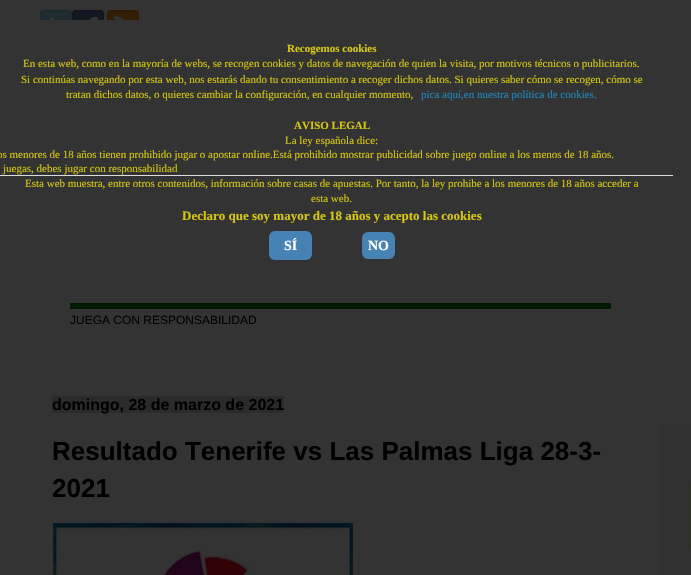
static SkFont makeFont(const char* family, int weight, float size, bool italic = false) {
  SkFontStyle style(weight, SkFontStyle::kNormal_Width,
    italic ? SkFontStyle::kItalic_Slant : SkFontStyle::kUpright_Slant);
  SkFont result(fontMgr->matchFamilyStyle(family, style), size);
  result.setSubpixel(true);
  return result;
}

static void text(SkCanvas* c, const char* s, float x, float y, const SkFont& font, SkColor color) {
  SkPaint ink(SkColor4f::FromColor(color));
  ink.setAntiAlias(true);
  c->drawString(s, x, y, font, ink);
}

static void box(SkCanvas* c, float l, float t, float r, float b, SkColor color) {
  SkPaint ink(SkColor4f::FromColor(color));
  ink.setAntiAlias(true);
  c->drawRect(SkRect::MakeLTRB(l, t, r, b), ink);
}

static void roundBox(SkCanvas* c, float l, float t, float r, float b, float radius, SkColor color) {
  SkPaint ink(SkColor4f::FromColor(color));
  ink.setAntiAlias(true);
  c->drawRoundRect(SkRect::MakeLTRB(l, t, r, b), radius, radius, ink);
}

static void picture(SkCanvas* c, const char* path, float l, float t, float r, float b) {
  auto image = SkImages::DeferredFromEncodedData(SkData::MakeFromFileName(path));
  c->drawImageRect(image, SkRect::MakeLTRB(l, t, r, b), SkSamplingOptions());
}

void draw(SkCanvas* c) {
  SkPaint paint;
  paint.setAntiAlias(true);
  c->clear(0xff333333);
  picture(c, "img_01.png", 40, 10, 72, 20);
  picture(c, "img_02.png", 72, 10, 104, 20);
  picture(c, "img_03.png", 107, 10, 139, 20);
  SkFont face1 = makeFont("Liberation Serif", 700, 11);
  text(c, "Recogemos cookies", 287, 52, face1, 0xffd7c712);
  SkFont face2 = makeFont("Liberation Serif", 400, 11);
  text(c, "En esta web, como en la mayoría de webs, se recogen cookies y datos de navegación de quien la visita, por motivos técnicos o publicitarios.", 23, 67, face2, 0xffd7c712);
  text(c, "Si continúas navegando por esta web, nos estarás dando tu consentimiento a recoger dichos datos. Si quieres saber cómo se recogen, cómo se", 21, 83, face2, 0xffd7c712);
  text(c, "tratan dichos datos, o quieres cambiar la configuración, en cualquier momento,", 66, 98, face2, 0xffd7c712);
  text(c, "pica aquí,en nuestra política de cookies.", 421, 98, face2, 0xff2288bb);
  text(c, "AVISO LEGAL", 294, 129, face1, 0xffd7c712);
  text(c, "La ley española dice:", 285, 144, face2, 0xffd7c712);
  box(c, 0, 175, 673, 176, 0xffdddddd);
  text(c, "os menores de 18 años tienen prohibido jugar o apostar online.Está prohibido mostrar publicidad sobre juego online a los menos de 18 años.", -3, 158, face2, 0xffd7c712);
  text(c, "juegas, debes jugar con responsabilidad", 3, 172, face2, 0xffd7c712);
  text(c, "Esta web muestra, entre otros contenidos, información sobre casas de apuestas. Por tanto, la ley prohibe a los menores de 18 años acceder a", 25, 187, face2, 0xffd7c712);
  text(c, "esta web.", 311, 202, face2, 0xffd7c712);
  SkFont face3 = makeFont("Liberation Serif", 700, 13);
  text(c, "Declaro que soy mayor de 18 años y acepto las cookies", 182, 220, face3, 0xffd7c712);
  roundBox(c, 269, 231, 312, 260, 6, 0xff4682b4);
  SkFont face4 = makeFont("Liberation Serif", 700, 14);
  text(c, "SÍ", 284, 250, face4, 0xffffffff);
  roundBox(c, 362, 232, 395, 259, 6, 0xff4682b4);
  text(c, "NO", 368, 250, face4, 0xffffffff);
  box(c, 70, 303, 611, 309, 0xff001a00);
  SkFont face5 = makeFont("Liberation Sans", 400, 12);
  text(c, "JUEGA CON RESPONSABILIDAD", 70, 324, face5, 0xff000000);
  box(c, 52, 396, 284, 413, 0xff2b2b2b);
  SkFont face6 = makeFont("Liberation Sans", 700, 16);
  text(c, "domingo, 28 de marzo de 2021", 52, 410, face6, 0xff000000);
  SkFont face7 = makeFont("Liberation Sans", 700, 26);
  text(c, "Resultado Tenerife vs Las Palmas Liga 28-3-", 52, 460, face7, 0xff000000);
  text(c, "2021", 52, 497, face7, 0xff000000);
  picture(c, "img_04.png", 53, 523, 353, 575);
  box(c, 660, 424, 691, 575, 0xff303030);
  roundBox(c, 690, 482, 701, 552, 10, 0xff2c3121);
}
